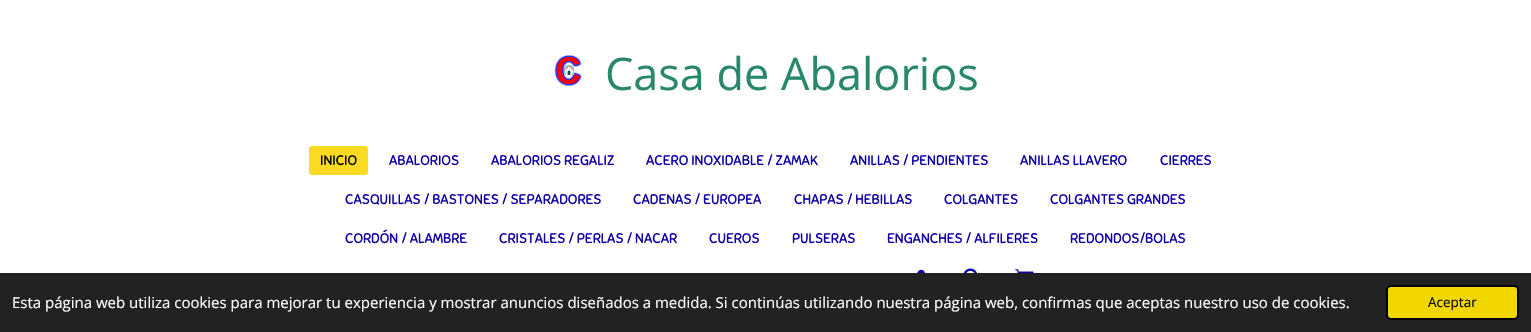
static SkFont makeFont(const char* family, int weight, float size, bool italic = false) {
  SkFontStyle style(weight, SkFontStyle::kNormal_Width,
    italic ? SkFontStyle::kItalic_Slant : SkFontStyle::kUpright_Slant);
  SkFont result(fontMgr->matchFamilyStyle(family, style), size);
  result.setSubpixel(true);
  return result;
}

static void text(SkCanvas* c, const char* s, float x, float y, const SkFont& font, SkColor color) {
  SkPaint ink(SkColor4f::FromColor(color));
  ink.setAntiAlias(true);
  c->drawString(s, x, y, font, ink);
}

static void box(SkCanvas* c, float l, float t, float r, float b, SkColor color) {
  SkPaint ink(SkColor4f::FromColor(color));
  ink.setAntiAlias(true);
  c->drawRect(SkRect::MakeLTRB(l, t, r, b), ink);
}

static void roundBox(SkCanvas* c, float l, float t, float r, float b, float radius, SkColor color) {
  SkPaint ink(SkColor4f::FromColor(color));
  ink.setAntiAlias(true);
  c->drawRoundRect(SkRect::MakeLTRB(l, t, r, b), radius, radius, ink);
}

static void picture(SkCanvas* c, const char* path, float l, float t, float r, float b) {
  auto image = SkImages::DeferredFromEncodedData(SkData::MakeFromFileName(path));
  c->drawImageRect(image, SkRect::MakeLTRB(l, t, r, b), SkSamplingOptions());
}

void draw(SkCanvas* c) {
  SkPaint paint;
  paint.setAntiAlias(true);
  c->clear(0xffffffff);
  picture(c, "img_01.png", 554, 55, 582, 86);
  SkFont face1 = makeFont("Open Sans", 400, 45);
  text(c, "Casa de Abalorios", 605, 90, face1, 0xff29876b);
  roundBox(c, 309, 146, 368, 175, 3, 0xfffbdb22);
  SkFont face2 = makeFont("Sniglet", 400, 14);
  text(c, "INICIO", 320, 165, face2, 0xff040400);
  text(c, "ABALORIOS", 389, 165, face2, 0xff0f00a5);
  text(c, "ABALORIOS REGALIZ", 491, 165, face2, 0xff0f00a5);
  text(c, "ACERO INOXIDABLE / ZAMAK", 646, 165, face2, 0xff0f00a5);
  text(c, "ANILLAS / PENDIENTES", 850, 165, face2, 0xff0f00a5);
  text(c, "ANILLAS LLAVERO", 1020, 165, face2, 0xff0f00a5);
  text(c, "CIERRES", 1160, 165, face2, 0xff0f00a5);
  text(c, "CASQUILLAS / BASTONES / SEPARADORES", 345, 204, face2, 0xff0f00a5);
  text(c, "CADENAS / EUROPEA", 633, 204, face2, 0xff0f00a5);
  text(c, "CHAPAS / HEBILLAS", 794, 204, face2, 0xff0f00a5);
  text(c, "COLGANTES", 944, 204, face2, 0xff0f00a5);
  text(c, "COLGANTES GRANDES", 1050, 204, face2, 0xff0f00a5);
  text(c, "CORDÓN / ALAMBRE", 345, 243, face2, 0xff0f00a5);
  text(c, "CRISTALES / PERLAS / NACAR", 499, 243, face2, 0xff0f00a5);
  text(c, "CUEROS", 709, 243, face2, 0xff0f00a5);
  text(c, "PULSERAS", 792, 243, face2, 0xff0f00a5);
  text(c, "ENGANCHES / ALFILERES", 887, 243, face2, 0xff0f00a5);
  text(c, "REDONDOS/BOLAS", 1070, 243, face2, 0xff0f00a5);
  picture(c, "img_02.png", 917, 269, 925, 273);
  picture(c, "img_03.png", 963, 268, 977, 273);
  picture(c, "img_04.png", 1015, 269, 1034, 273);
  box(c, 0, 273, 1531, 332, 0xff222222);
  SkFont face3 = makeFont("Open Sans", 400, 15);
  text(c, "Esta página web utiliza cookies para mejorar tu experiencia y mostrar anuncios diseñados a medida. Si continúas utilizando nuestra página web, confirmas que aceptas nuestro uso de cookies.", 12, 308, face3, 0xffffffff);
  paint.setColor(0xfff1d600);
  c->drawRoundRect(SkRect::MakeLTRB(1387, 286, 1518, 319), 4, 4, paint);
  paint.setStyle(SkPaint::kStroke_Style);
  paint.setStrokeWidth(2);
  paint.setColor(0xff000000);
  c->drawRoundRect(SkRect::MakeLTRB(1387, 286, 1518, 319), 4, 4, paint);
  SkFont face4 = makeFont("Open Sans", 400, 13.5f);
  text(c, "Aceptar", 1428, 307, face4, 0xff040400);
}
